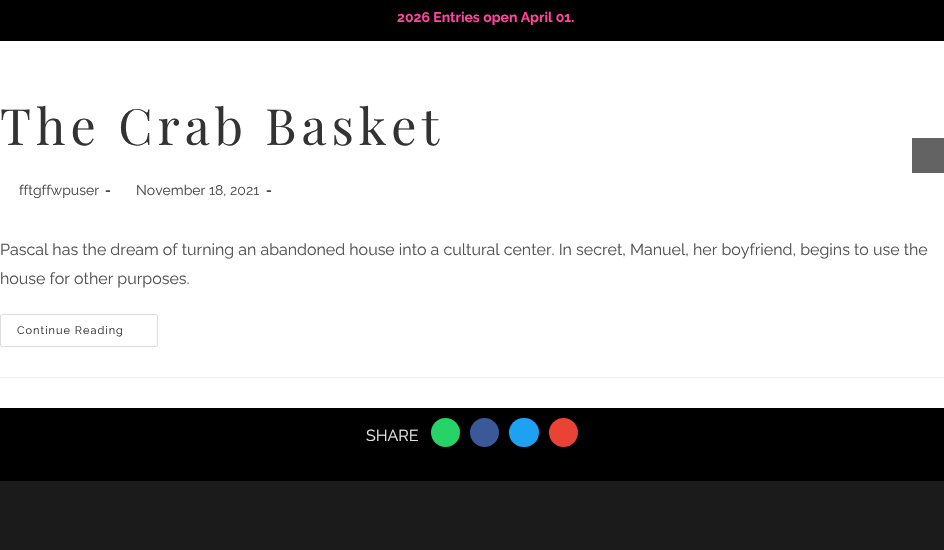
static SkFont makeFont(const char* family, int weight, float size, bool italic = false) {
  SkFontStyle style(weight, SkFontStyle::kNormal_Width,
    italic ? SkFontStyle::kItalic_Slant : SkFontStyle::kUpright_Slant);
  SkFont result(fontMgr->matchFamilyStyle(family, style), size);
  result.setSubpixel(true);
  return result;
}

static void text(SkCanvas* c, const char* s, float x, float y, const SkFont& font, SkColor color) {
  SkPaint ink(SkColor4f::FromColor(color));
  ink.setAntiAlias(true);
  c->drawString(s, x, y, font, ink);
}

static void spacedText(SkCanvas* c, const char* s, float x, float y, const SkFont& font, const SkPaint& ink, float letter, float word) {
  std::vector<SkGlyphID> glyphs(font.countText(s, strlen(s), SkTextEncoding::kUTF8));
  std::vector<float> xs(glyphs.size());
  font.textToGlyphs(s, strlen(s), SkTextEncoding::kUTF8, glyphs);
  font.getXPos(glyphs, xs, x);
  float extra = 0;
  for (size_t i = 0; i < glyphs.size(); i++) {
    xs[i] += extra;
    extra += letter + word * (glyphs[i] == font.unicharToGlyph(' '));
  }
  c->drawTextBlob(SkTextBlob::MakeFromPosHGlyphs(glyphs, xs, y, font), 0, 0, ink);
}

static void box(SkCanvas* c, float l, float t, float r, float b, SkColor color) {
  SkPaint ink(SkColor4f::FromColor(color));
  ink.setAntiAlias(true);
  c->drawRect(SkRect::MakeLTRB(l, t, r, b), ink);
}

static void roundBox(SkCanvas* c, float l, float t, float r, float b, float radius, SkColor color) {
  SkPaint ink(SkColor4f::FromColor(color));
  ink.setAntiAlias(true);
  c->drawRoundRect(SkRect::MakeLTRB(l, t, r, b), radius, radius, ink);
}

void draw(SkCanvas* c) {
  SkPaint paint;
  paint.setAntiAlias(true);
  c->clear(0xffffffff);
  box(c, 0, 0, 944, 41, 0xff000000);
  SkFont face1 = makeFont("Raleway", 700, 14);
  text(c, "2026 Entries open April 01.", 397, 22, face1, 0xffff439f);
  box(c, 0, 377, 944, 378, 0xfff1f1f1);
  SkFont face2 = makeFont("Playfair Display", 400, 50);
  paint.setColor(0xff333333);
  spacedText(c, "The Crab Basket", 0, 145, face2, paint, 5, 0);
  SkFont face3 = makeFont("Raleway", 400, 14);
  text(c, "fftgffwpuser", 19, 195, face3, 0xff4a4a4a);
  text(c, "-", 105, 195, face1, 0xff4a4a4a);
  text(c, "November 18, 2021", 136, 195, face3, 0xff4a4a4a);
  text(c, "-", 266, 195, face1, 0xff4a4a4a);
  SkFont face4 = makeFont("Raleway", 400, 16);
  text(c, "Pascal has the dream of turning an abandoned house into a cultural center. In secret, Manuel, her boyfriend, begins to use the", 0, 255, face4, 0xff525252);
  text(c, "house for other purposes.", 0, 284, face4, 0xff525252);
  paint.setStyle(SkPaint::kStroke_Style);
  paint.setStrokeWidth(1);
  paint.setColor(0xffdddddd);
  c->drawRoundRect(SkRect::MakeLTRB(0.5f, 314.5f, 157.5f, 346.5f), 1.5f, 1.5f, paint);
  SkFont face5 = makeFont("Raleway", 400, 11);
  paint.setStyle(SkPaint::kFill_Style);
  paint.setColor(0xff333333);
  spacedText(c, "Continue Reading", 17, 334, face5, paint, 1, 0);
  box(c, 912, 138, 944, 173, 0xff636363);
  box(c, 0, 408, 944, 481, 0xff000000);
  text(c, "SHARE", 366, 441, face4, 0xffe2e2e2);
  paint.setColor(0xff25d366);
  c->drawCircle(445.5f, 432.5f, 14.5f, paint);
  paint.setColor(0xff3b5998);
  c->drawCircle(484.5f, 432.5f, 14.5f, paint);
  roundBox(c, 509, 418, 539, 447, 14.5f, 0xff1da1f2);
  paint.setColor(0xffea4335);
  c->drawCircle(563.5f, 432.5f, 14.5f, paint);
  box(c, 0, 481, 944, 550, 0xff1b1b1b);
}
